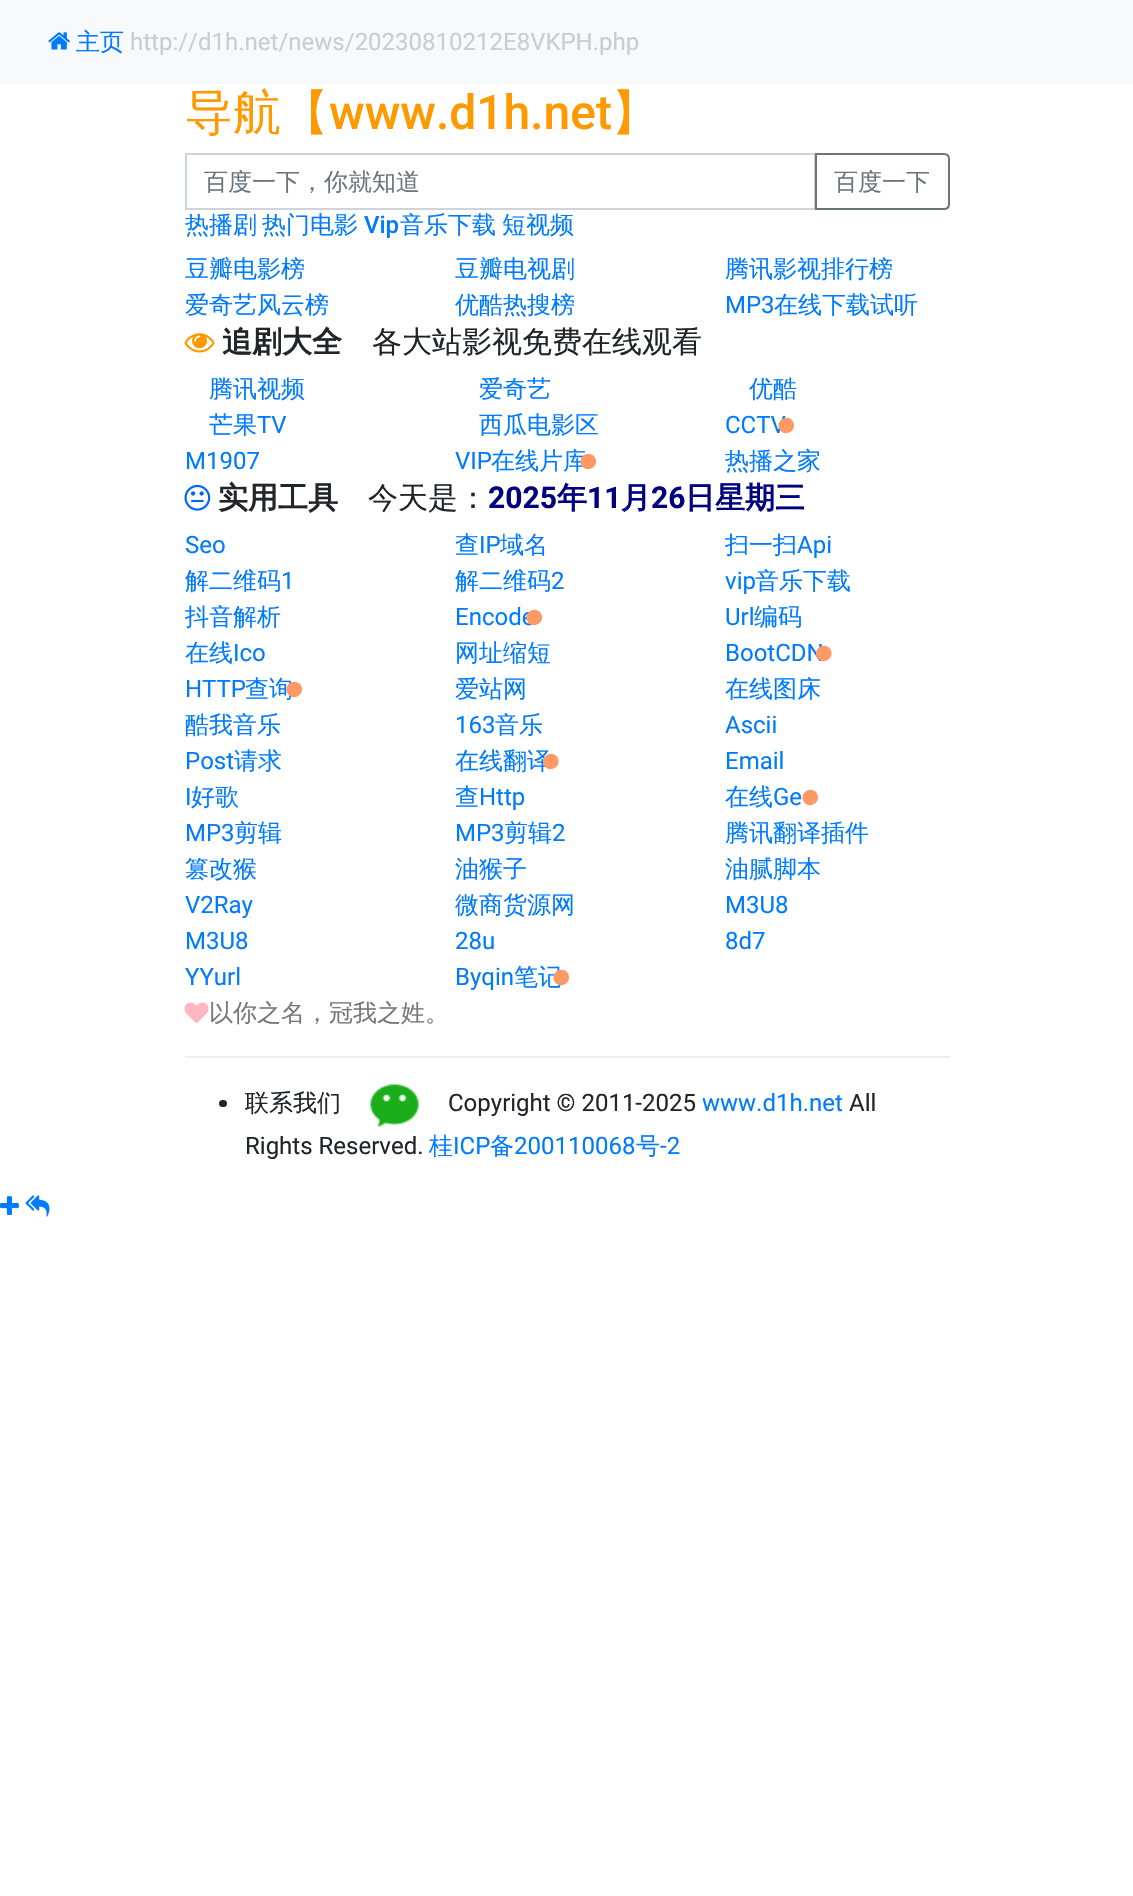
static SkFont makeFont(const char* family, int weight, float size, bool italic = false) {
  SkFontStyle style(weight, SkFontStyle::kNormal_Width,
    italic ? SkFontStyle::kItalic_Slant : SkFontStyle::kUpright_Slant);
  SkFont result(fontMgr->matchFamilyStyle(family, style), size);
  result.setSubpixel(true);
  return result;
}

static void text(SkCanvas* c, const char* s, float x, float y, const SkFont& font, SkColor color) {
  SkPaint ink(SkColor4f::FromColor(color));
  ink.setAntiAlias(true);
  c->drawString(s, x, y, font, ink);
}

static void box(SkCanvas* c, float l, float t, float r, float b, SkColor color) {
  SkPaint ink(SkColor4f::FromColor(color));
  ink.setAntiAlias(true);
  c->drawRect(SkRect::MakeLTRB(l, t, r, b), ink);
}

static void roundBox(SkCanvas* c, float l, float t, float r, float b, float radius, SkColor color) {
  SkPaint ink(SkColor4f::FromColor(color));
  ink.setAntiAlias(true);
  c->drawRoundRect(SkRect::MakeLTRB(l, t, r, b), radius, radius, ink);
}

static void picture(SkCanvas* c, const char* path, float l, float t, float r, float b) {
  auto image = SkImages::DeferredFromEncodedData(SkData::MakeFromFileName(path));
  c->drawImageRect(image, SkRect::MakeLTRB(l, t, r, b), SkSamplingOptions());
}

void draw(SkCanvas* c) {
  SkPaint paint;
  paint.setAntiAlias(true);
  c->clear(0xffffffff);
  box(c, 0, 0, 1133, 84, 0xfff8f9fa);
  picture(c, "img_01.png", 48, 32, 70, 50);
  SkFont face1 = makeFont("WenQuanYi Zen Hei", 500, 24);
  text(c, "主页", 76, 50, face1, 0xff007bff);
  SkFont face2 = makeFont("Roboto", 400, 24);
  text(c, "http://d1h.net/news/20230810212E8VKPH.php", 130, 50, face2, 0xffcccccc);
  SkFont face3 = makeFont("WenQuanYi Zen Hei", 500, 48);
  text(c, "导航【", 185, 129, face3, 0xffff9900);
  SkFont face4 = makeFont("Roboto", 500, 48);
  text(c, "www.d1h.net", 329, 129, face4, 0xffff9900);
  text(c, "】", 611, 129, face3, 0xffff9900);
  paint.setStyle(SkPaint::kStroke_Style);
  paint.setStrokeWidth(2);
  paint.setColor(0xffced4da);
  c->drawRect(SkRect::MakeLTRB(186, 154, 815, 209), paint);
  text(c, "百度一下，你就知道", 204, 190, face1, 0xff6c757d);
  paint.setColor(0xff6c757d);
  c->drawPath(SkPathBuilder().moveTo(816, 154).lineTo(944, 154).cubicTo(947, 154, 949, 156, 949, 159).lineTo(949, 204).cubicTo(949, 207, 947, 209, 944, 209).lineTo(816, 209).close().detach(), paint);
  text(c, "百度一下", 834, 190, face1, 0xff6c757d);
  text(c, "热播剧", 185, 233, face1, 0xff007bff);
  text(c, "热门电影", 262, 233, face1, 0xff007bff);
  SkFont face5 = makeFont("Roboto", 500, 24);
  text(c, "Vip", 364, 233, face5, 0xff007bff);
  text(c, "音乐下载", 400, 233, face1, 0xff007bff);
  text(c, "短视频", 502, 233, face1, 0xff007bff);
  text(c, "豆瓣电影榜", 185, 277, face1, 0xff007bff);
  text(c, "豆瓣电视剧", 455, 277, face1, 0xff007bff);
  text(c, "腾讯影视排行榜", 725, 277, face1, 0xff007bff);
  text(c, "爱奇艺风云榜", 185, 313, face1, 0xff007bff);
  text(c, "优酷热搜榜", 455, 313, face1, 0xff007bff);
  text(c, "MP3", 725, 313, face2, 0xff007bff);
  text(c, "在线下载试听", 774, 313, face1, 0xff007bff);
  picture(c, "img_02.png", 184, 333, 215, 353);
  SkFont face6 = makeFont("WenQuanYi Zen Hei", 700, 30);
  text(c, "追剧大全", 222, 352, face6, 0xff212529);
  SkFont face7 = makeFont("WenQuanYi Zen Hei", 500, 30);
  text(c, "各大站影视免费在线观看", 372, 352, face7, 0xff212529);
  text(c, "腾讯视频", 209, 397, face1, 0xff007bff);
  text(c, "爱奇艺", 479, 397, face1, 0xff007bff);
  text(c, "优酷", 749, 397, face1, 0xff007bff);
  text(c, "芒果", 209, 433, face1, 0xff007bff);
  text(c, "TV", 257, 433, face2, 0xff007bff);
  text(c, "西瓜电影区", 479, 433, face1, 0xff007bff);
  text(c, "CCTV", 725, 433, face2, 0xff007bff);
  paint.setStyle(SkPaint::kFill_Style);
  paint.setColor(0xffff9966);
  c->drawPath(SkPathBuilder().moveTo(793, 421.5f).cubicTo(798, 430.5f, 784.5f, 438, 779.5f, 429.5f).cubicTo(774.5f, 420.5f, 788, 413, 793, 421.5f).close().detach(), paint);
  text(c, "M1907", 185, 469, face2, 0xff007bff);
  text(c, "VIP", 455, 469, face2, 0xff007bff);
  text(c, "在线片库", 491, 469, face1, 0xff007bff);
  c->drawPath(SkPathBuilder().moveTo(595, 457.5f).cubicTo(600, 466.5f, 586.5f, 474, 581.5f, 465.5f).cubicTo(576.5f, 456.5f, 590, 449, 595, 457.5f).close().detach(), paint);
  text(c, "热播之家", 725, 469, face1, 0xff007bff);
  picture(c, "img_03.png", 184, 484, 211, 511);
  text(c, "实用工具", 218, 508, face6, 0xff212529);
  text(c, "今天是：", 368, 508, face7, 0xff212529);
  SkFont face8 = makeFont("Roboto", 700, 30);
  text(c, "2025", 488, 508, face8, 0xff000080);
  text(c, "年", 557, 508, face6, 0xff000080);
  text(c, "11", 587, 508, face8, 0xff000080);
  text(c, "月", 621, 508, face6, 0xff000080);
  text(c, "26", 651, 508, face8, 0xff000080);
  text(c, "日星期三", 685, 508, face6, 0xff000080);
  text(c, "Seo", 185, 553, face2, 0xff007bff);
  text(c, "查", 455, 553, face1, 0xff007bff);
  text(c, "IP", 479, 553, face2, 0xff007bff);
  text(c, "域名", 500, 553, face1, 0xff007bff);
  text(c, "扫一扫", 725, 553, face1, 0xff007bff);
  text(c, "Api", 797, 553, face2, 0xff007bff);
  text(c, "解二维码", 185, 589, face1, 0xff007bff);
  text(c, "1", 281, 589, face2, 0xff007bff);
  text(c, "解二维码", 455, 589, face1, 0xff007bff);
  text(c, "2", 551, 589, face2, 0xff007bff);
  text(c, "vip", 725, 589, face2, 0xff007bff);
  text(c, "音乐下载", 755, 589, face1, 0xff007bff);
  text(c, "抖音解析", 185, 625, face1, 0xff007bff);
  text(c, "Encode", 455, 625, face2, 0xff007bff);
  c->drawPath(SkPathBuilder().moveTo(541, 613.5f).cubicTo(546, 622.5f, 532.5f, 630, 527.5f, 621.5f).cubicTo(522.5f, 612.5f, 536, 605, 541, 613.5f).close().detach(), paint);
  text(c, "Url", 725, 625, face2, 0xff007bff);
  text(c, "编码", 754, 625, face1, 0xff007bff);
  text(c, "在线", 185, 661, face1, 0xff007bff);
  text(c, "Ico", 233, 661, face2, 0xff007bff);
  text(c, "网址缩短", 455, 661, face1, 0xff007bff);
  text(c, "BootCDN", 725, 661, face2, 0xff007bff);
  c->drawPath(SkPathBuilder().moveTo(830.5f, 649.5f).cubicTo(835.5f, 658.5f, 822, 666, 817, 657.5f).cubicTo(812, 648.5f, 825.5f, 641, 830.5f, 649.5f).close().detach(), paint);
  text(c, "HTTP", 185, 697, face2, 0xff007bff);
  text(c, "查询", 245, 697, face1, 0xff007bff);
  c->drawPath(SkPathBuilder().moveTo(301, 685.5f).cubicTo(306, 694.5f, 292.5f, 702, 287.5f, 693.5f).cubicTo(282.5f, 684.5f, 296, 677, 301, 685.5f).close().detach(), paint);
  text(c, "爱站网", 455, 697, face1, 0xff007bff);
  text(c, "在线图床", 725, 697, face1, 0xff007bff);
  text(c, "酷我音乐", 185, 733, face1, 0xff007bff);
  text(c, "163", 455, 733, face2, 0xff007bff);
  text(c, "音乐", 495, 733, face1, 0xff007bff);
  text(c, "Ascii", 725, 733, face2, 0xff007bff);
  text(c, "Post", 185, 769, face2, 0xff007bff);
  text(c, "请求", 234, 769, face1, 0xff007bff);
  text(c, "在线翻译", 455, 769, face1, 0xff007bff);
  c->drawPath(SkPathBuilder().moveTo(557.5f, 757.5f).cubicTo(562.5f, 766.5f, 549, 774, 544, 765.5f).cubicTo(539, 756.5f, 552.5f, 749, 557.5f, 757.5f).close().detach(), paint);
  text(c, "Email", 725, 769, face2, 0xff007bff);
  text(c, "I", 185, 805, face2, 0xff007bff);
  text(c, "好歌", 191, 805, face1, 0xff007bff);
  text(c, "查", 455, 805, face1, 0xff007bff);
  text(c, "Http", 479, 805, face2, 0xff007bff);
  text(c, "在线", 725, 805, face1, 0xff007bff);
  text(c, "Ge", 773, 805, face2, 0xff007bff);
  c->drawPath(SkPathBuilder().moveTo(817, 793.5f).cubicTo(822, 802.5f, 808.5f, 810, 803.5f, 801.5f).cubicTo(798.5f, 792.5f, 812, 785, 817, 793.5f).close().detach(), paint);
  text(c, "MP3", 185, 841, face2, 0xff007bff);
  text(c, "剪辑", 234, 841, face1, 0xff007bff);
  text(c, "MP3", 455, 841, face2, 0xff007bff);
  text(c, "剪辑", 504, 841, face1, 0xff007bff);
  text(c, "2", 552, 841, face2, 0xff007bff);
  text(c, "腾讯翻译插件", 725, 841, face1, 0xff007bff);
  text(c, "篡改猴", 185, 877, face1, 0xff007bff);
  text(c, "油猴子", 455, 877, face1, 0xff007bff);
  text(c, "油腻脚本", 725, 877, face1, 0xff007bff);
  text(c, "V2Ray", 185, 913, face2, 0xff007bff);
  text(c, "微商货源网", 455, 913, face1, 0xff007bff);
  text(c, "M3U8", 725, 913, face2, 0xff007bff);
  text(c, "M3U8", 185, 949, face2, 0xff007bff);
  text(c, "28u", 455, 949, face2, 0xff007bff);
  text(c, "8d7", 725, 949, face2, 0xff007bff);
  text(c, "YYurl", 185, 985, face2, 0xff007bff);
  text(c, "Byqin", 455, 985, face2, 0xff007bff);
  text(c, "笔记", 514, 985, face1, 0xff007bff);
  c->drawPath(SkPathBuilder().moveTo(568, 973.5f).cubicTo(573, 982.5f, 559.5f, 990, 554.5f, 981.5f).cubicTo(549.5f, 972.5f, 563, 965, 568, 973.5f).close().detach(), paint);
  picture(c, "img_04.png", 184, 1002, 209, 1024);
  text(c, "以你之名，冠我之姓。", 209, 1021, face1, 0xff777777);
  box(c, 185, 1056, 950, 1058, 0xffeeeeee);
  roundBox(c, 219, 1100, 227, 1107, 3.5f, 0xff212529);
  text(c, "联系我们", 245, 1111, face1, 0xff212529);
  picture(c, "img_05.png", 370, 1084, 419, 1127);
  text(c, "Copyright © 2011-2025", 448, 1111, face2, 0xff212529);
  text(c, "www.d1h.net", 702, 1111, face2, 0xff007bff);
  text(c, "All", 849, 1111, face2, 0xff212529);
  text(c, "Rights Reserved.", 245, 1154, face2, 0xff212529);
  text(c, "桂", 429, 1154, face1, 0xff007bff);
  text(c, "ICP", 453, 1154, face2, 0xff007bff);
  text(c, "备", 490, 1154, face1, 0xff007bff);
  text(c, "200110068", 514, 1154, face2, 0xff007bff);
  text(c, "号", 636, 1154, face1, 0xff007bff);
  text(c, "-2", 660, 1154, face2, 0xff007bff);
  picture(c, "img_06.png", 0, 1196, 19, 1215);
  picture(c, "img_07.png", 25, 1195, 50, 1217);
}
